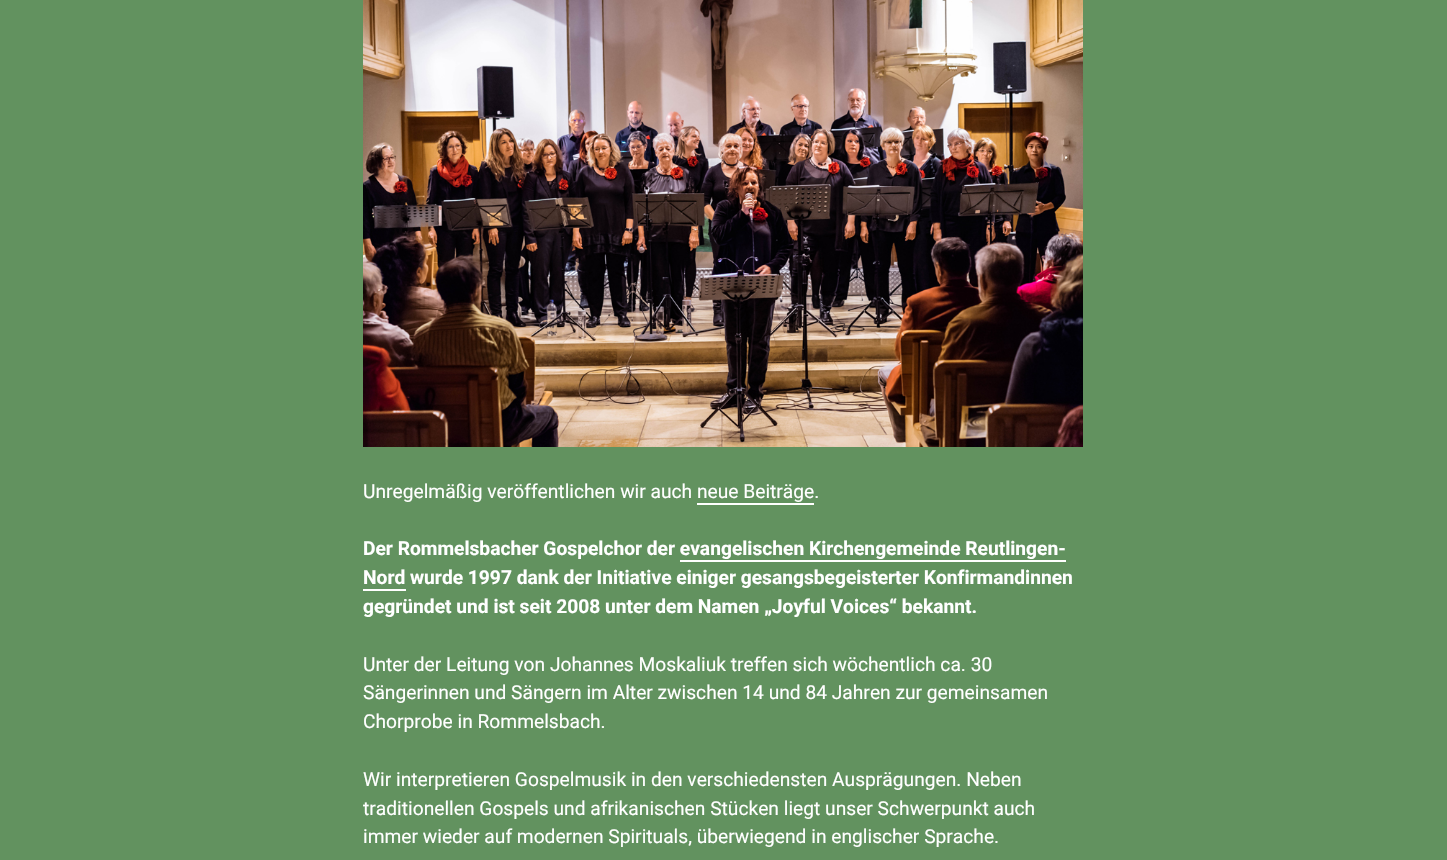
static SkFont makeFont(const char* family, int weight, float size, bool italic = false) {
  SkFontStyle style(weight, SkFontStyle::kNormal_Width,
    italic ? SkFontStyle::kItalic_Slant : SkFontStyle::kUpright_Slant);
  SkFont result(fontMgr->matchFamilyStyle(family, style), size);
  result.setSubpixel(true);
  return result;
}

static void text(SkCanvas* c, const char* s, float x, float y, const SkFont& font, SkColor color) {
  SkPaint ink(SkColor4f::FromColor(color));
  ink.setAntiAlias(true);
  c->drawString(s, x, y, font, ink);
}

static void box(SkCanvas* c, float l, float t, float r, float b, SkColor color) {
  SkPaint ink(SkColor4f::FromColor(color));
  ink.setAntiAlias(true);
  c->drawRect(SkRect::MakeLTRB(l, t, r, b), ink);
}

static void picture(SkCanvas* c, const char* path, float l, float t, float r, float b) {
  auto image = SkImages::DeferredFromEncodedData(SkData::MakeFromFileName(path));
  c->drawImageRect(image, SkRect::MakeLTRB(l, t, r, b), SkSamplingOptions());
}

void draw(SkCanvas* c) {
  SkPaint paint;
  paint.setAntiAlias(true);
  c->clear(0xff62925f);
  picture(c, "img_01.png", 363, 0, 1083, 447);
  SkFont face1 = makeFont("Roboto", 400, 19.2f);
  text(c, "Unregelmäßig veröffentlichen wir auch neue Beiträge.", 363, 498, face1, 0xffffffff);
  box(c, 697, 503, 814, 505, 0xffffffff);
  SkFont face2 = makeFont("Roboto", 700, 19.2f);
  text(c, "Der Rommelsbacher Gospelchor der evangelischen Kirchengemeinde Reutlingen-", 363, 555, face2, 0xffffffff);
  box(c, 680, 560, 1066, 562, 0xffffffff);
  text(c, "Nord wurde 1997 dank der Initiative einiger gesangsbegeisterter Konfirmandinnen", 363, 584, face2, 0xffffffff);
  box(c, 363, 589, 406, 591, 0xffffffff);
  text(c, "gegründet und ist seit 2008 unter dem Namen „Joyful Voices“ bekannt.", 363, 613, face2, 0xffffffff);
  text(c, "Unter der Leitung von Johannes Moskaliuk treffen sich wöchentlich ca. 30", 363, 671, face1, 0xffffffff);
  text(c, "Sängerinnen und Sängern im Alter zwischen 14 und 84 Jahren zur gemeinsamen", 363, 699, face1, 0xffffffff);
  text(c, "Chorprobe in Rommelsbach.", 363, 728, face1, 0xffffffff);
  text(c, "Wir interpretieren Gospelmusik in den verschiedensten Ausprägungen. Neben", 363, 786, face1, 0xffffffff);
  text(c, "traditionellen Gospels und afrikanischen Stücken liegt unser Schwerpunkt auch", 363, 815, face1, 0xffffffff);
  text(c, "immer wieder auf modernen Spirituals, überwiegend in englischer Sprache.", 363, 843, face1, 0xffffffff);
}
